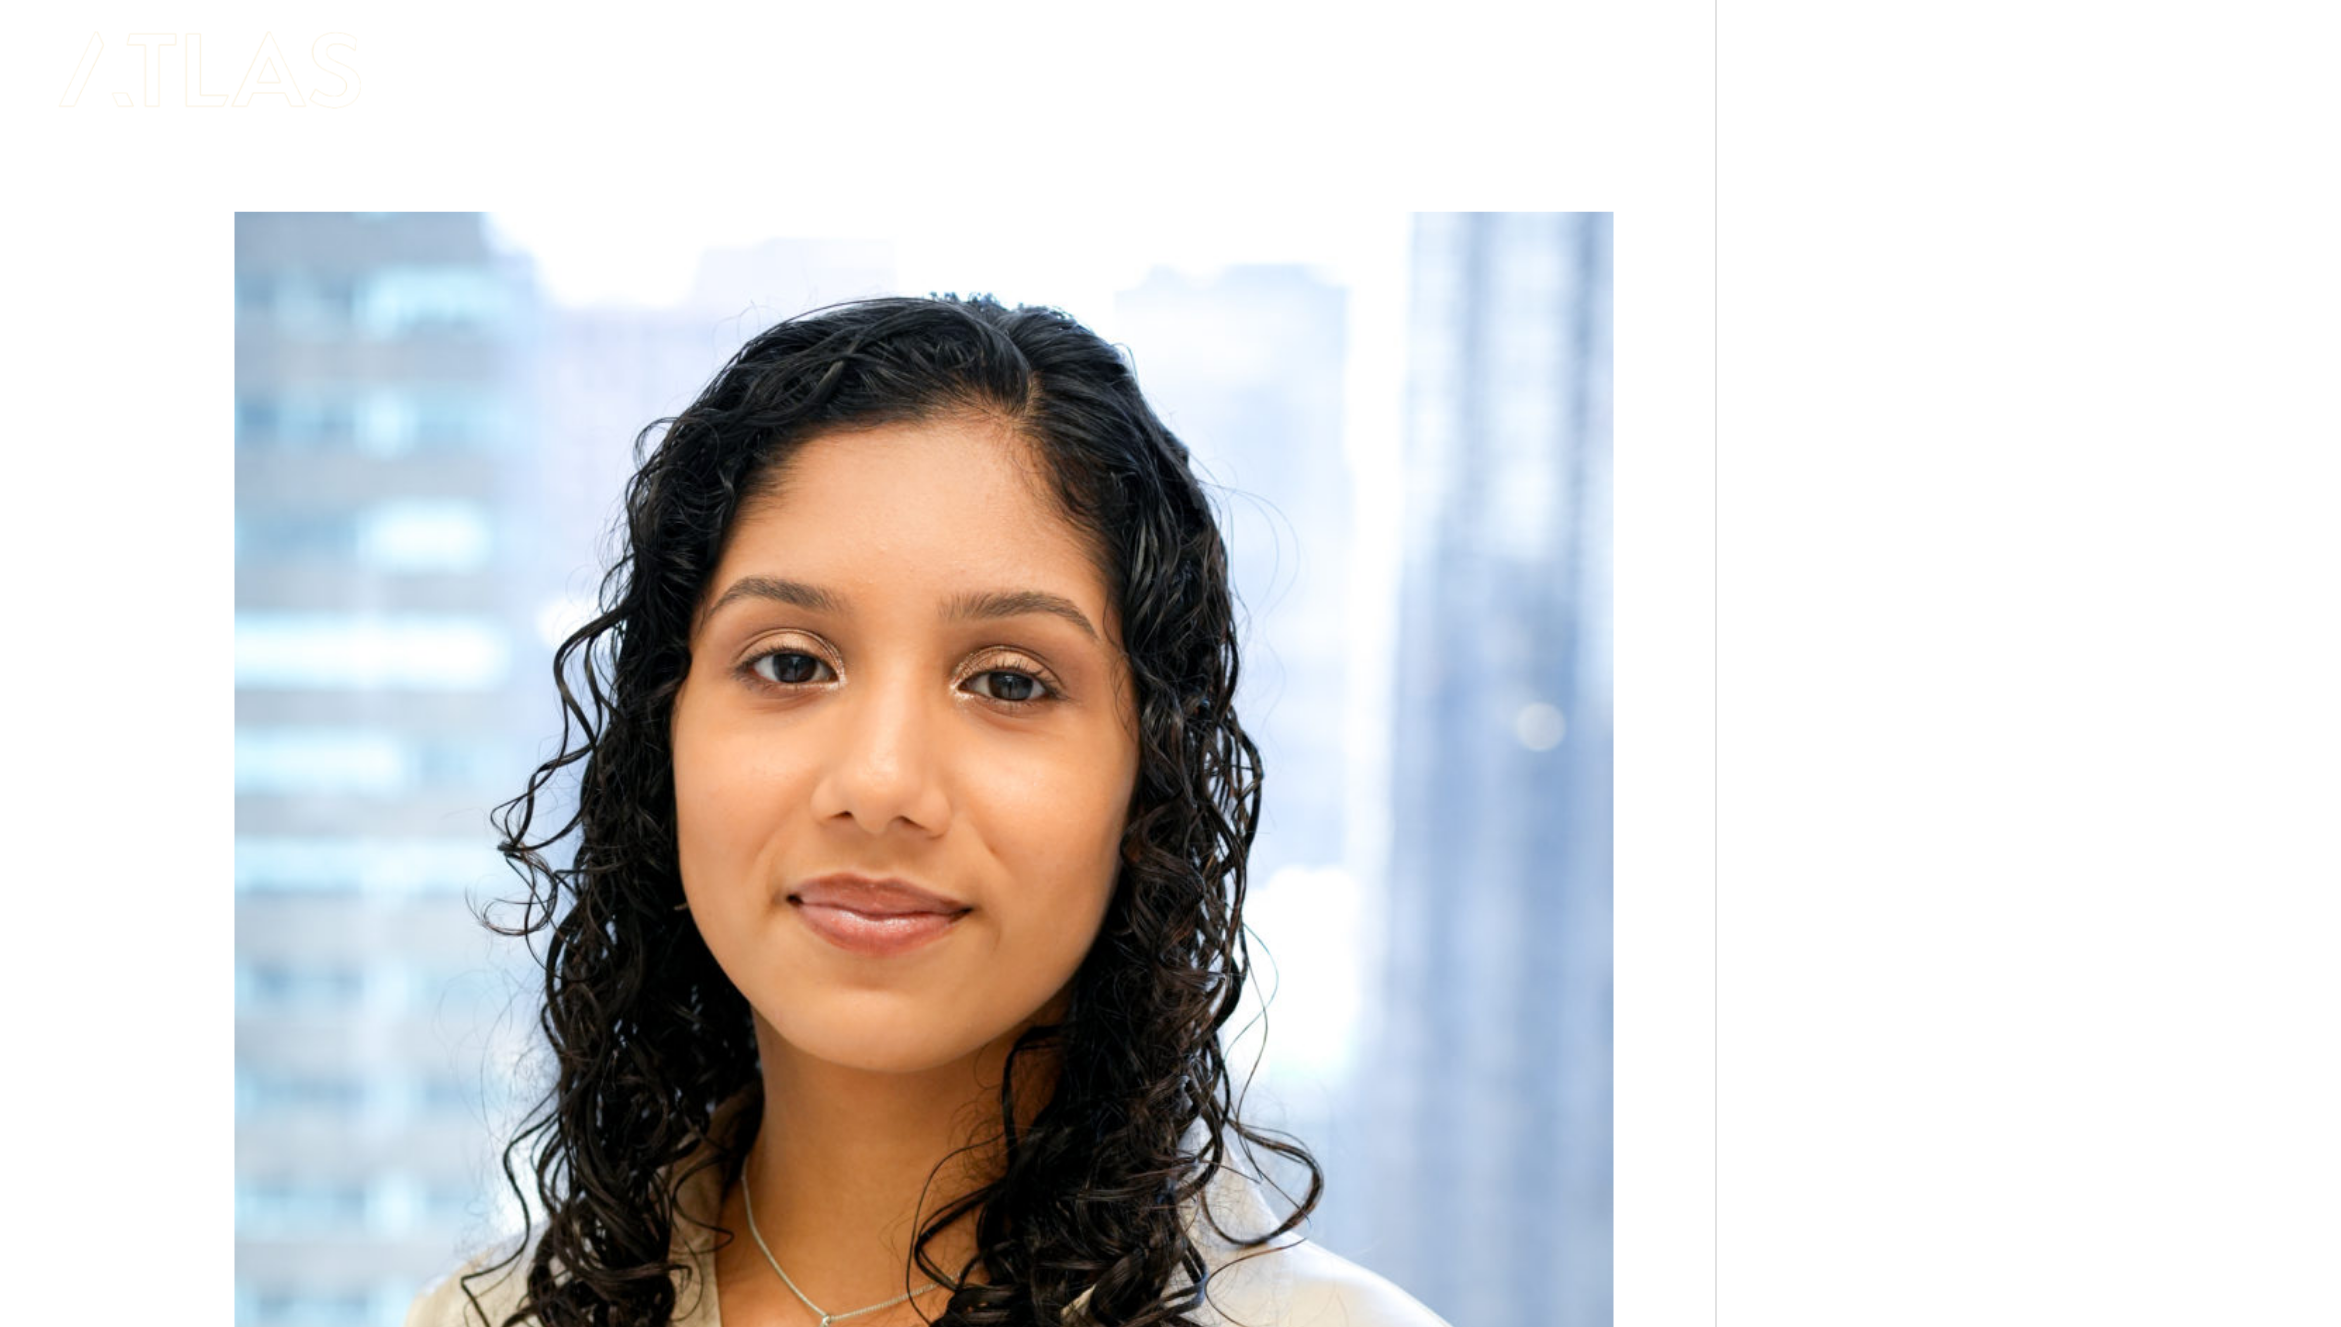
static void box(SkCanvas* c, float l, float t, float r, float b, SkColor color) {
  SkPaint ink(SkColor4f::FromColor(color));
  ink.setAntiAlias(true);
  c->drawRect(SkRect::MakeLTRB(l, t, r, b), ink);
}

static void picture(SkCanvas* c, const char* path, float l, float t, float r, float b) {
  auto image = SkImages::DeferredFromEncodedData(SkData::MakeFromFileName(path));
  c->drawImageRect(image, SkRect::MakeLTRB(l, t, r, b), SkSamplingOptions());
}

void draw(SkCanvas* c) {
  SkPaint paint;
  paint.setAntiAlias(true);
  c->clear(0xffffffff);
  picture(c, "img_01.png", 58, 31, 361, 109);
  picture(c, "img_02.png", 234, 211, 1614, 1327);
  box(c, 1715, 0, 1717, 1327, 0xffe2e2e2);
}
